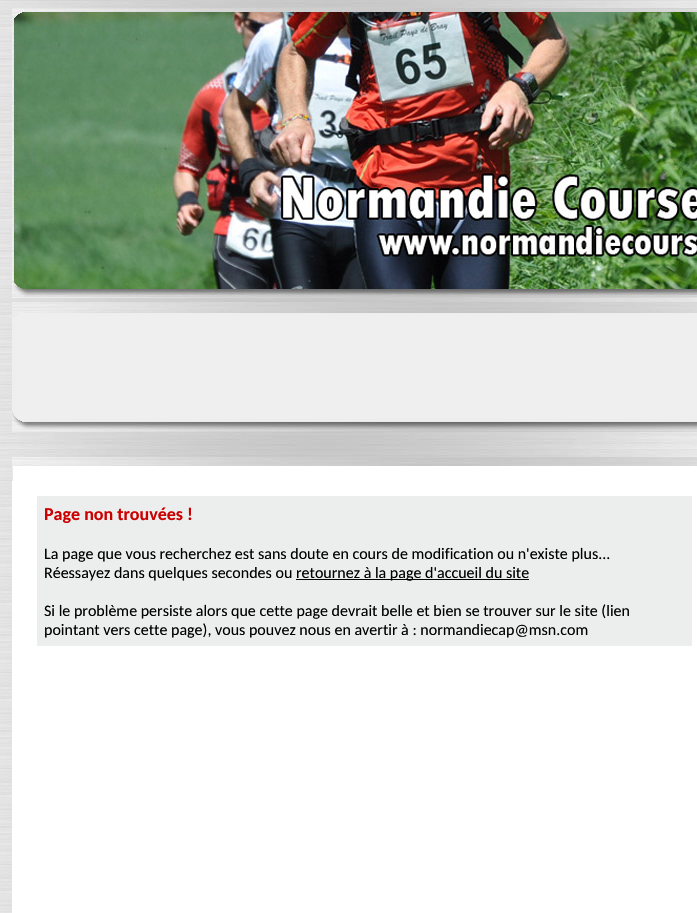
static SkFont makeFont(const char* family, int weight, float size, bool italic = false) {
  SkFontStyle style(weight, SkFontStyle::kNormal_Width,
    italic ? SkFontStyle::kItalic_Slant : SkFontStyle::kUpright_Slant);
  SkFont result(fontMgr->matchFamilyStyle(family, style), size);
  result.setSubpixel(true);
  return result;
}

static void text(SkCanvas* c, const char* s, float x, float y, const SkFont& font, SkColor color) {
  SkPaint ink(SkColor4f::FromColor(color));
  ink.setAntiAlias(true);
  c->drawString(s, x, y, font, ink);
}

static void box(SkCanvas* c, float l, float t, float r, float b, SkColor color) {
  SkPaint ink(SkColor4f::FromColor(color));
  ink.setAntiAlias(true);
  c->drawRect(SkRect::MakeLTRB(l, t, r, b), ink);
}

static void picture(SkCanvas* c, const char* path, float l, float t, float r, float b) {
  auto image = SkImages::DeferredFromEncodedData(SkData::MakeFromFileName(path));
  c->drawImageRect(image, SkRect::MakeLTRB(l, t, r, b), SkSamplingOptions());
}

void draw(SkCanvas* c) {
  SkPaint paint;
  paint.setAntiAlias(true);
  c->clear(0xffffffff);
  picture(c, "img_01.png", 0, 0, 697, 913);
  picture(c, "img_02.png", 12, 8, 697, 298);
  picture(c, "img_03.png", 12, 302, 697, 432);
  box(c, 12, 481, 697, 913, 0xffffffff);
  picture(c, "img_04.png", 12, 457, 697, 481);
  box(c, 37, 496, 692, 646, 0xffeceded);
  SkFont face1 = makeFont("Carlito", 700, 18);
  text(c, "Page non trouvées !", 44, 520, face1, 0xffcc0000);
  SkFont face2 = makeFont("Carlito", 400, 16);
  text(c, "La page que vous recherchez est sans doute en cours de modification ou n'existe plus...", 44, 559, face2, 0xff000000);
  text(c, "Réessayez dans quelques secondes ou", 44, 578, face2, 0xff000000);
  box(c, 296, 579, 529, 580, 0xff000000);
  text(c, "retournez à la page d'accueil du site", 296, 578, face2, 0xff000000);
  text(c, "Si le problème persiste alors que cette page devrait belle et bien se trouver sur le site (lien", 44, 616, face2, 0xff000000);
  text(c, "pointant vers cette page), vous pouvez nous en avertir à : normandiecap@msn.com", 44, 635, face2, 0xff000000);
}
